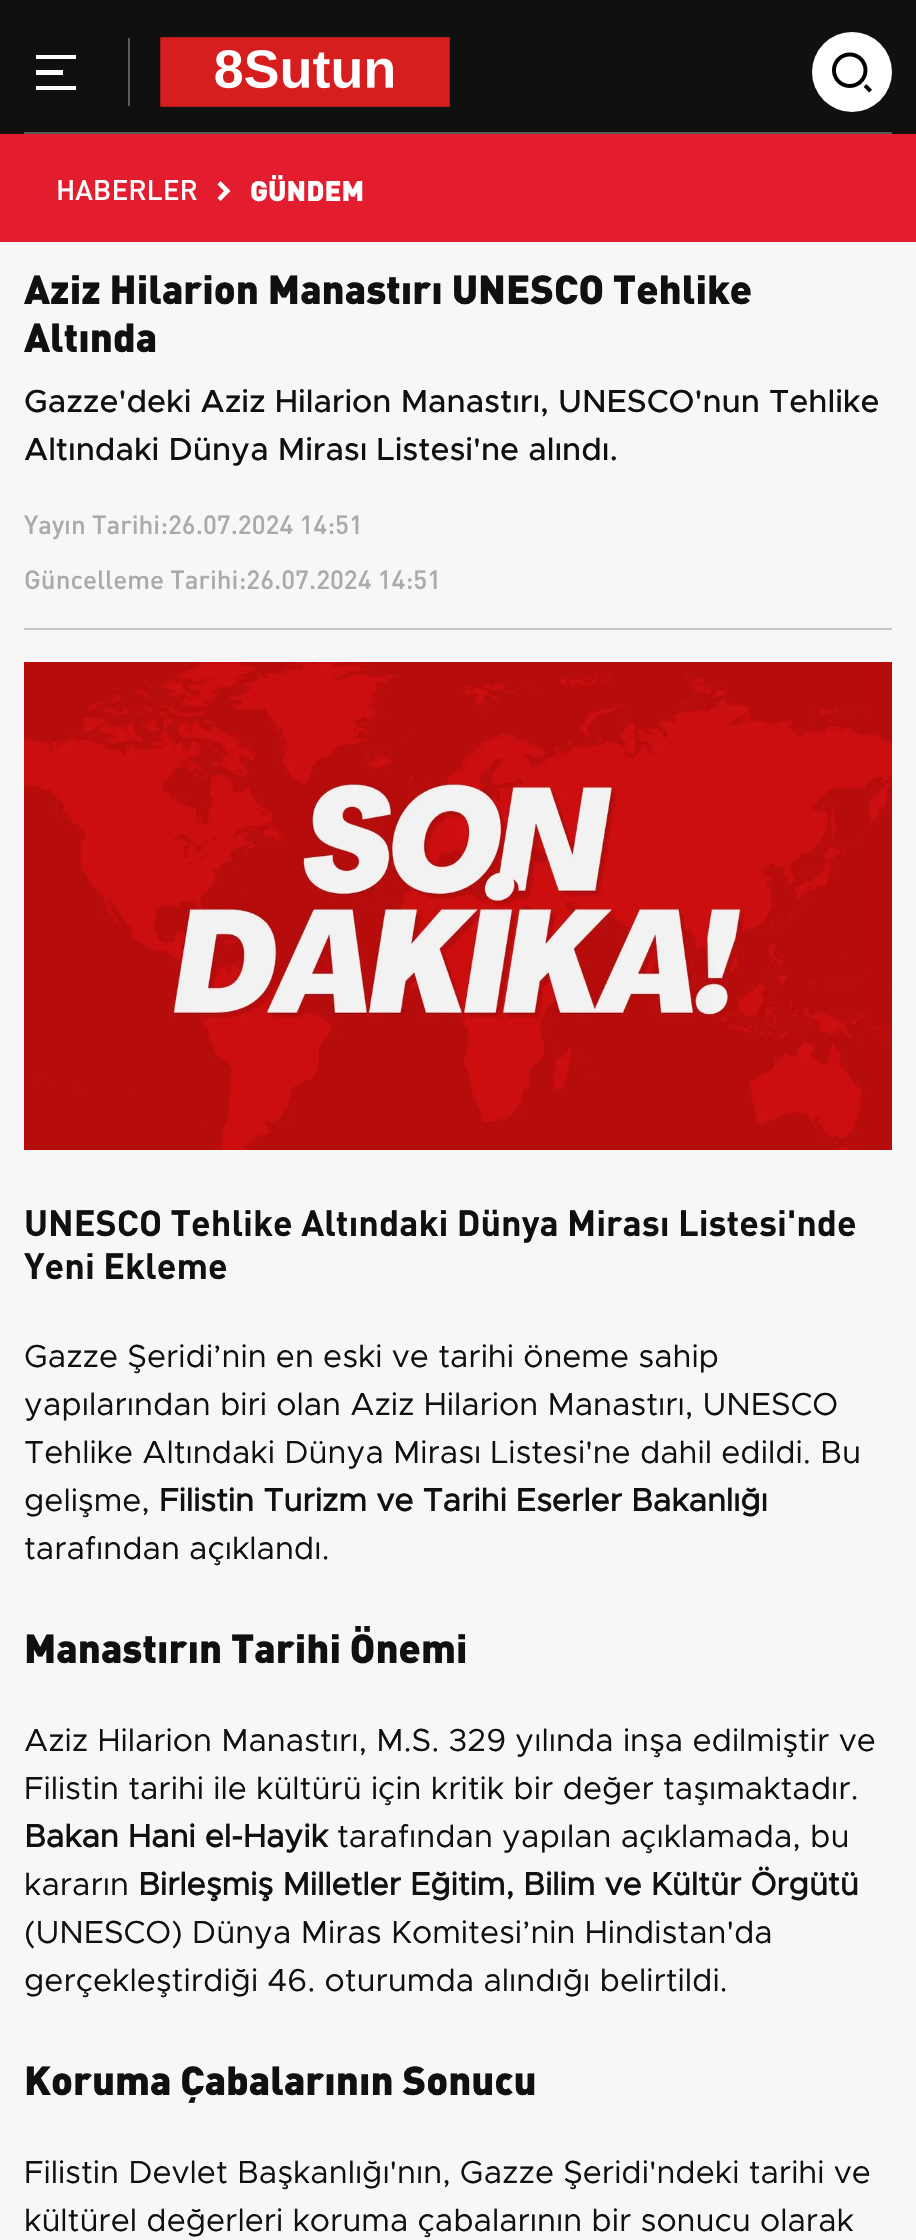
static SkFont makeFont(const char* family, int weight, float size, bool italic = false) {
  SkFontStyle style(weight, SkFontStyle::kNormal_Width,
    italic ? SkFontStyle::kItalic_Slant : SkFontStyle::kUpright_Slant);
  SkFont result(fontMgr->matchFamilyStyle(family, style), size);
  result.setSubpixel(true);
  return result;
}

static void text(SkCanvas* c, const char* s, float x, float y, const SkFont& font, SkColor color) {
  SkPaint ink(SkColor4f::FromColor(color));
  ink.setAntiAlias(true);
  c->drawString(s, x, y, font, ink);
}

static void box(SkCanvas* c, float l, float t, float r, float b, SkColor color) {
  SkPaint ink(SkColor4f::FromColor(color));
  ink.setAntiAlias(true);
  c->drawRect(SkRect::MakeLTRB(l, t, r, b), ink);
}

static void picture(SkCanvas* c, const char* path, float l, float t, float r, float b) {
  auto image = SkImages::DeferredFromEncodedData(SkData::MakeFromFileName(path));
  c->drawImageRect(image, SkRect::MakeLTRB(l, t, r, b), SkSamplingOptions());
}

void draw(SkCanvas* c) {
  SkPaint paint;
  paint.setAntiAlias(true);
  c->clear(0xfff7f7f7);
  box(c, 0, 0, 916, 134, 0xff101010);
  box(c, 24, 132, 892, 134, 0xff5b5b5b);
  box(c, 128, 38, 130, 106, 0xff5b5b5b);
  paint.setColor(0xffffffff);
  c->drawPath(SkPathBuilder().moveTo(36, 55).lineTo(76, 55).lineTo(76, 59).lineTo(36, 59).close().moveTo(36, 70).lineTo(63, 70).lineTo(63, 75).lineTo(36, 75).close().moveTo(36, 86).lineTo(76, 86).lineTo(76, 90).lineTo(36, 90).close().detach(), paint);
  picture(c, "img_01.png", 160, 37, 450, 107);
  c->drawCircle(852, 72, 40, paint);
  picture(c, "img_02.png", 832, 52, 872, 93);
  box(c, 0, 134, 916, 242, 0xffe31d2e);
  SkFont face1 = makeFont("DIN", 500, 28);
  text(c, "HABERLER", 56, 200, face1, 0xffffffff);
  c->drawPath(SkPathBuilder().moveTo(224, 191).lineTo(217.5f, 184.5f).lineTo(220.5f, 181).lineTo(230.5f, 191).lineTo(220.5f, 201).lineTo(217.5f, 198).close().detach(), paint);
  SkFont face2 = makeFont("DIN", 900, 28);
  text(c, "GÜNDEM", 250, 201, face2, 0xffffffff);
  SkFont face3 = makeFont("DIN", 900, 40);
  text(c, "Aziz Hilarion Manastırı UNESCO Tehlike", 24, 304, face3, 0xff101010);
  text(c, "Altında", 24, 352, face3, 0xff101010);
  SkFont face4 = makeFont("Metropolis", 500, 32);
  text(c, "Gazze'deki Aziz Hilarion Manastırı, UNESCO'nun Tehlike", 24, 412, face4, 0xff101010);
  text(c, "Altındaki Dünya Mirası Listesi'ne alındı.", 24, 460, face4, 0xff101010);
  box(c, 24, 628, 892, 630, 0xffc8c8c8);
  SkFont face5 = makeFont("DIN", 500, 26);
  text(c, "Yayın Tarihi:26.07.2024 14:51", 24, 534, face5, 0xffaaaaaa);
  text(c, "Güncelleme Tarihi:26.07.2024 14:51", 24, 589, face5, 0xffaaaaaa);
  picture(c, "img_03.png", 24, 662, 892, 1150);
  SkFont face6 = makeFont("DIN", 700, 36);
  text(c, "UNESCO Tehlike Altındaki Dünya Mirası Listesi'nde", 24, 1236, face6, 0xff101010);
  text(c, "Yeni Ekleme", 24, 1279, face6, 0xff101010);
  SkFont face7 = makeFont("Metropolis", 400, 32);
  text(c, "Gazze Şeridi’nin en eski ve tarihi öneme sahip", 24, 1367, face7, 0xff101010);
  text(c, "yapılarından biri olan Aziz Hilarion Manastırı, UNESCO", 24, 1415, face7, 0xff101010);
  text(c, "Tehlike Altındaki Dünya Mirası Listesi'ne dahil edildi. Bu", 24, 1463, face7, 0xff101010);
  text(c, "gelişme,", 24, 1511, face7, 0xff101010);
  SkFont face8 = makeFont("Metropolis", 700, 32);
  text(c, "Filistin Turizm ve Tarihi Eserler Bakanlığı", 159, 1511, face8, 0xff101010);
  text(c, "tarafından açıklandı.", 24, 1559, face7, 0xff101010);
  text(c, "Manastırın Tarihi Önemi", 24, 1663, face3, 0xff101010);
  text(c, "Aziz Hilarion Manastırı, M.S. 329 yılında inşa edilmiştir ve", 24, 1751, face7, 0xff101010);
  text(c, "Filistin tarihi ile kültürü için kritik bir değer taşımaktadır.", 24, 1799, face7, 0xff101010);
  text(c, "Bakan Hani el-Hayik", 24, 1847, face8, 0xff101010);
  text(c, "tarafından yapılan açıklamada, bu", 337, 1847, face7, 0xff101010);
  text(c, "kararın", 24, 1895, face7, 0xff101010);
  text(c, "Birleşmiş Milletler Eğitim, Bilim ve Kültür Örgütü", 138, 1895, face8, 0xff101010);
  text(c, "(UNESCO) Dünya Miras Komitesi’nin Hindistan'da", 24, 1943, face7, 0xff101010);
  text(c, "gerçekleştirdiği 46. oturumda alındığı belirtildi.", 24, 1991, face7, 0xff101010);
  text(c, "Koruma Çabalarının Sonucu", 24, 2095, face3, 0xff101010);
  text(c, "Filistin Devlet Başkanlığı'nın, Gazze Şeridi'ndeki tarihi ve", 24, 2183, face7, 0xff101010);
  text(c, "kültürel değerleri koruma çabalarının bir sonucu olarak", 24, 2231, face7, 0xff101010);
}
